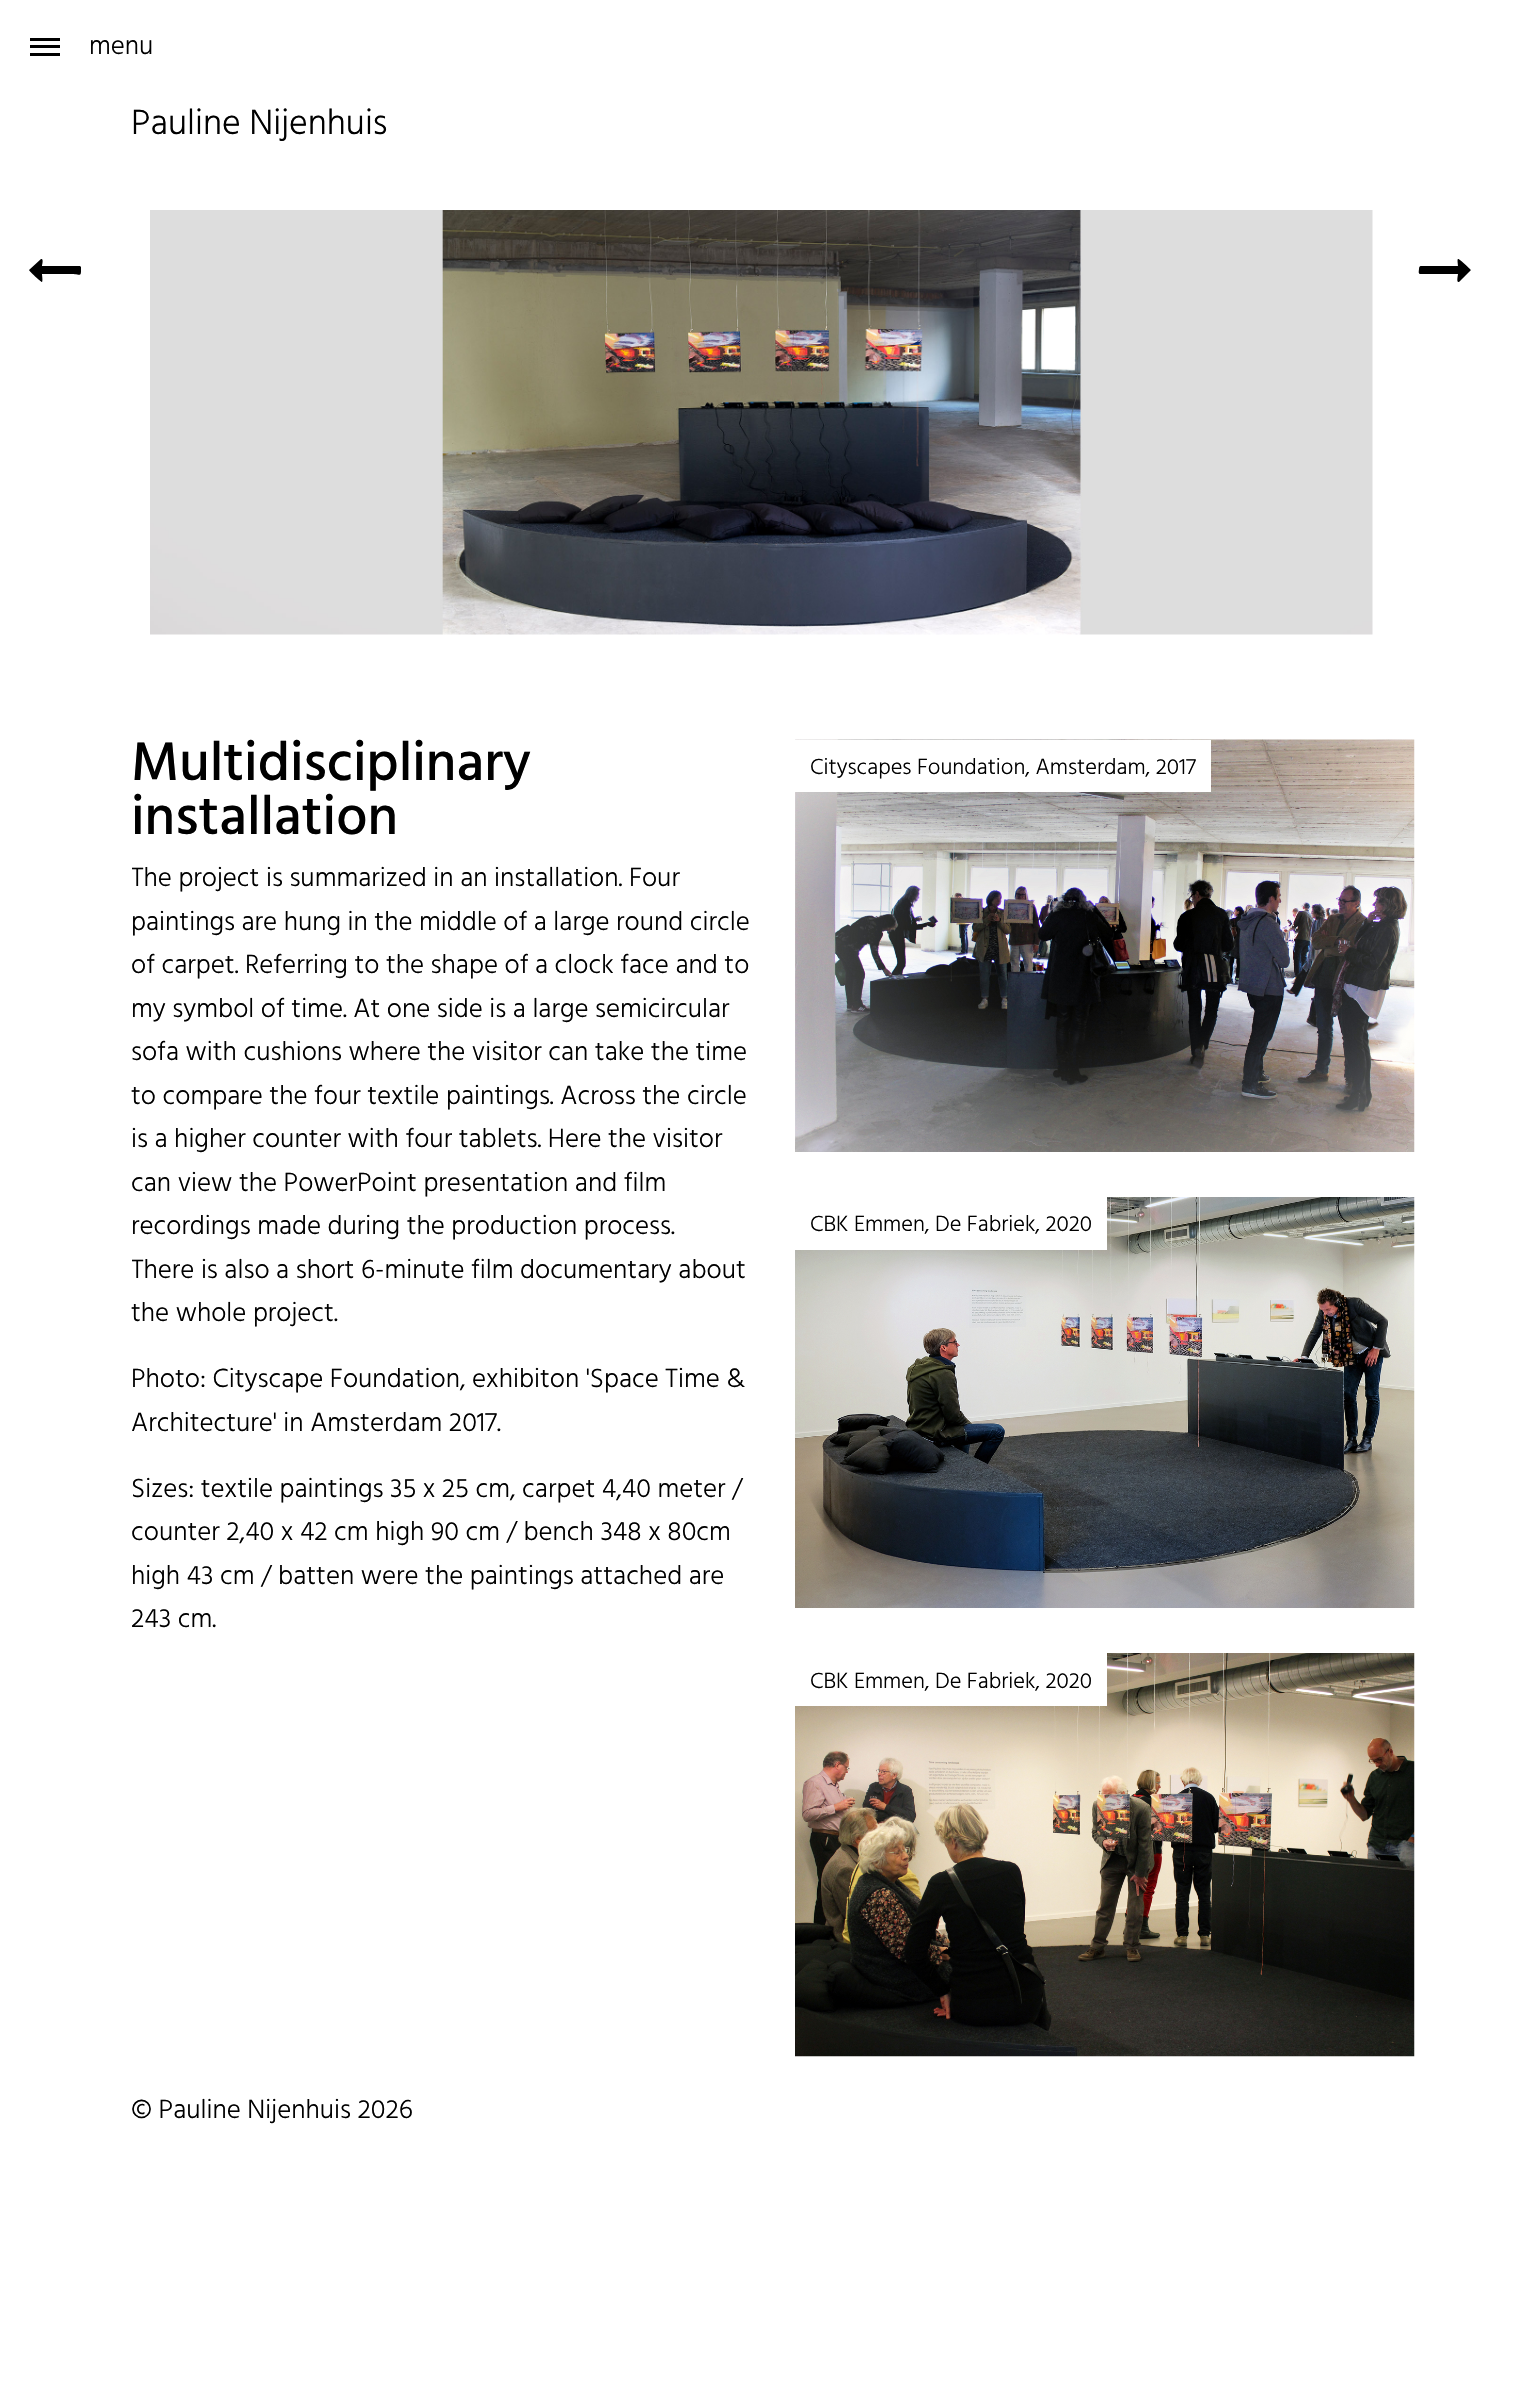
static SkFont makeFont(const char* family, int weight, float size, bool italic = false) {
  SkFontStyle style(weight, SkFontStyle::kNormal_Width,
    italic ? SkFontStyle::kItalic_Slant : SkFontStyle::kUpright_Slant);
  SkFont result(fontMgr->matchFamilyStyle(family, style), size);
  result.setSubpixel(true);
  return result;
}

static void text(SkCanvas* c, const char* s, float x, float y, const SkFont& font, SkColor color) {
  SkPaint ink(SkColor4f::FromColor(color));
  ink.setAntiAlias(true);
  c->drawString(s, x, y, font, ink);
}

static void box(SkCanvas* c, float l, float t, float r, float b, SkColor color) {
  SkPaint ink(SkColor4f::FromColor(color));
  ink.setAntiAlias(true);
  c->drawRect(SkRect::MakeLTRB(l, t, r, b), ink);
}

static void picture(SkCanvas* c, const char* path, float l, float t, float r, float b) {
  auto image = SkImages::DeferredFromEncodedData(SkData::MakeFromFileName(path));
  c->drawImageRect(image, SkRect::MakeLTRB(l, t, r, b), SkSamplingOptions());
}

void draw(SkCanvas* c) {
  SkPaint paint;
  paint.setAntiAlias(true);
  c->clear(0xffffffff);
  box(c, 30, 38, 60, 41, 0xff000000);
  box(c, 30, 45, 60, 48, 0xff000000);
  box(c, 30, 53, 60, 56, 0xff000000);
  SkFont face1 = makeFont("Hind Vadodara", 300, 27);
  text(c, "menu", 89, 54, face1, 0xff000000);
  SkFont face2 = makeFont("Hind Vadodara", 300, 36);
  text(c, "Pauline Nijenhuis", 131, 134, face2, 0xff000000);
  picture(c, "img_01.png", 150, 210, 1373, 635);
  paint.setColor(0xff000000);
  c->drawPath(SkPathBuilder().moveTo(81, 267).cubicTo(81, 278, 82, 274, 68, 274).lineTo(42, 274).cubicTo(42, 275, 43, 281, 42, 282).cubicTo(41, 282, 29, 271, 29, 270).lineTo(41, 259).cubicTo(44, 258, 42, 265, 42, 266).lineTo(80, 266).close().detach(), paint);
  c->drawPath(SkPathBuilder().moveTo(1471, 270).lineTo(1459, 282).cubicTo(1456, 283, 1458, 275, 1458, 274).lineTo(1420, 274).cubicTo(1418, 274, 1419, 270, 1419, 269).cubicTo(1419, 265, 1421, 266, 1426, 266).lineTo(1458, 266).cubicTo(1458, 265, 1457, 259, 1458, 259).cubicTo(1459, 258, 1471, 270, 1471, 270).close().detach(), paint);
  SkFont face3 = makeFont("Hind Vadodara", 500, 55.5f);
  text(c, "Multidisciplinary", 131, 780, face3, 0xff000000);
  text(c, "installation", 131, 834, face3, 0xff000000);
  c->save();
  c->clipRect(SkRect::MakeLTRB(132, 848, 750, 1655));
  text(c, "The project is summarized in an installation. Four", 131, 886, face1, 0xff000000);
  c->restore();
  text(c, "paintings are hung in the middle of a large round circle", 131, 930, face1, 0xff000000);
  text(c, "of carpet. Referring to the shape of a clock face and to", 131, 973, face1, 0xff000000);
  text(c, "my symbol of time. At one side is a large semicircular", 131, 1017, face1, 0xff000000);
  text(c, "sofa with cushions where the visitor can take the time", 131, 1060, face1, 0xff000000);
  text(c, "to compare the four textile paintings. Across the circle", 131, 1104, face1, 0xff000000);
  text(c, "is a higher counter with four tablets. Here the visitor", 131, 1147, face1, 0xff000000);
  text(c, "can view the PowerPoint presentation and film", 131, 1191, face1, 0xff000000);
  text(c, "recordings made during the production process.", 131, 1234, face1, 0xff000000);
  c->save();
  c->clipRect(SkRect::MakeLTRB(132, 848, 750, 1655));
  text(c, "There is also a short 6-minute film documentary about", 131, 1278, face1, 0xff000000);
  c->restore();
  text(c, "the whole project.", 131, 1321, face1, 0xff000000);
  text(c, "Photo: Cityscape Foundation, exhibiton 'Space Time &", 131, 1387, face1, 0xff000000);
  text(c, "Architecture' in Amsterdam 2017.", 131, 1431, face1, 0xff000000);
  text(c, "Sizes: textile paintings 35 x 25 cm, carpet 4,40 meter /", 131, 1497, face1, 0xff000000);
  text(c, "counter 2,40 x 42 cm high 90 cm / bench 348 x 80cm", 131, 1540, face1, 0xff000000);
  text(c, "high 43 cm / batten were the paintings attached are", 131, 1584, face1, 0xff000000);
  text(c, "243 cm.", 131, 1627, face1, 0xff000000);
  picture(c, "img_02.png", 795, 739, 1415, 1152);
  box(c, 795, 740, 1211, 792, 0xffffffff);
  SkFont face4 = makeFont("Hind Vadodara", 300, 22.5f);
  text(c, "Cityscapes Foundation, Amsterdam, 2017", 810, 774, face4, 0xff000000);
  picture(c, "img_03.png", 795, 1197, 1415, 1608);
  box(c, 795, 1197, 1107, 1250, 0xffffffff);
  text(c, "CBK Emmen, De Fabriek, 2020", 810, 1231, face4, 0xff000000);
  picture(c, "img_04.png", 795, 1653, 1415, 2057);
  box(c, 795, 1653, 1107, 1706, 0xffffffff);
  text(c, "CBK Emmen, De Fabriek, 2020", 810, 1688, face4, 0xff000000);
  text(c, "© Pauline Nijenhuis 2026", 131, 2118, face1, 0xff000000);
}
